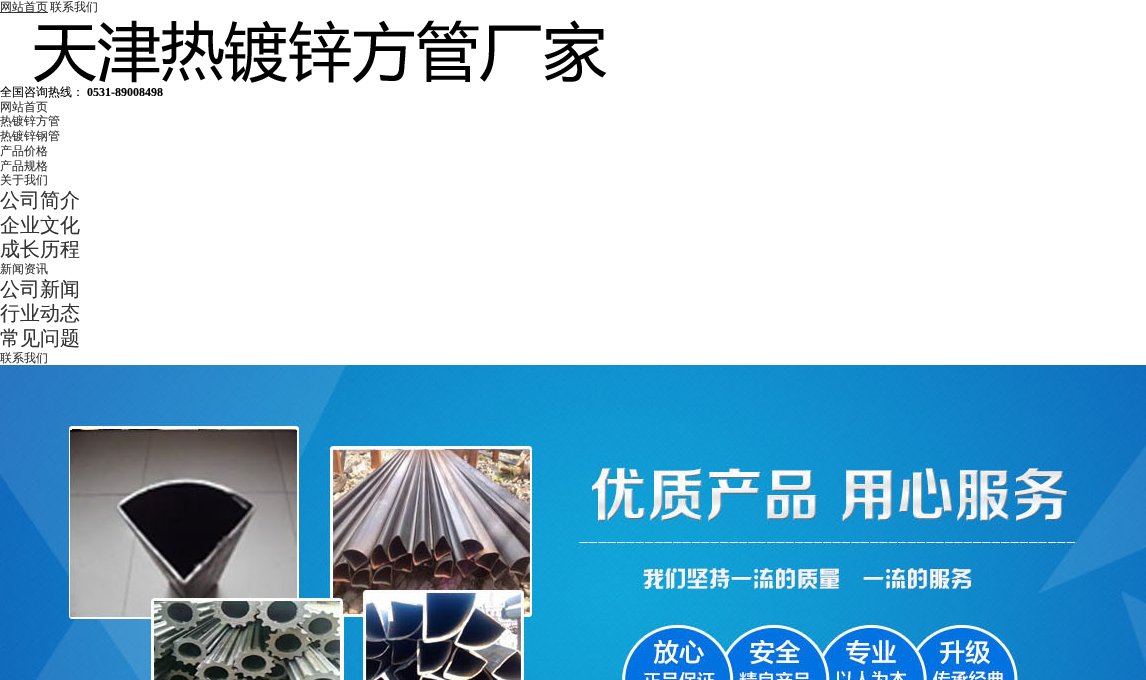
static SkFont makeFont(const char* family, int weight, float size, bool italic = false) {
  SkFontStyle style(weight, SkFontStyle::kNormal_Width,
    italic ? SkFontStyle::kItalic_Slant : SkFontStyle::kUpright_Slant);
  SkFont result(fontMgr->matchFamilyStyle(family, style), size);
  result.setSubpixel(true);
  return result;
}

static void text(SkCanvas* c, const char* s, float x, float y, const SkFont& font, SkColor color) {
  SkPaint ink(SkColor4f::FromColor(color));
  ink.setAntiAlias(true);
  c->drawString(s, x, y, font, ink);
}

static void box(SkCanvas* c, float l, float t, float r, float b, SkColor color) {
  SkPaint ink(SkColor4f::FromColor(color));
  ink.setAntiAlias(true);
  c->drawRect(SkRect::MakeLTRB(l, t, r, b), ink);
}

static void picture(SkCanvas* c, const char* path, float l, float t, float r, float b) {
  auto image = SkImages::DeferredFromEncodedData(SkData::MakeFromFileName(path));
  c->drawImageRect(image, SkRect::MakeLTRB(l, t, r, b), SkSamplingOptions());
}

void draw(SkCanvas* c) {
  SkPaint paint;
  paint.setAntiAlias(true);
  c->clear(0xffffffff);
  box(c, 0, 12, 48, 13, 0xff333333);
  SkFont face1 = makeFont("WenQuanYi Zen Hei", 500, 12);
  text(c, "网站首页", 0, 11, face1, 0xff333333);
  text(c, "联系我们", 50, 11, face1, 0xff333333);
  picture(c, "img_01.png", 34, 20, 607, 83);
  text(c, "全国咨询热线：", 0, 96, face1, 0xff000000);
  SkFont face2 = makeFont("Liberation Serif", 700, 12);
  text(c, "0531-89008498", 87, 96, face2, 0xff000000);
  text(c, "网站首页", 0, 111, face1, 0xff333333);
  text(c, "热镀锌方管", 0, 125, face1, 0xff333333);
  text(c, "热镀锌钢管", 0, 140, face1, 0xff333333);
  text(c, "产品价格", 0, 155, face1, 0xff333333);
  text(c, "产品规格", 0, 170, face1, 0xff333333);
  text(c, "关于我们", 0, 184, face1, 0xff333333);
  SkFont face3 = makeFont("WenQuanYi Zen Hei", 500, 20);
  text(c, "公司简介", 0, 207, face3, 0xff333333);
  text(c, "企业文化", 0, 232, face3, 0xff333333);
  text(c, "成长历程", 0, 256, face3, 0xff333333);
  text(c, "新闻资讯", 0, 273, face1, 0xff333333);
  text(c, "公司新闻", 0, 296, face3, 0xff333333);
  text(c, "行业动态", 0, 320, face3, 0xff333333);
  text(c, "常见问题", 0, 345, face3, 0xff333333);
  text(c, "联系我们", 0, 362, face1, 0xff333333);
  picture(c, "img_02.png", 0, 365, 1146, 680);
}
